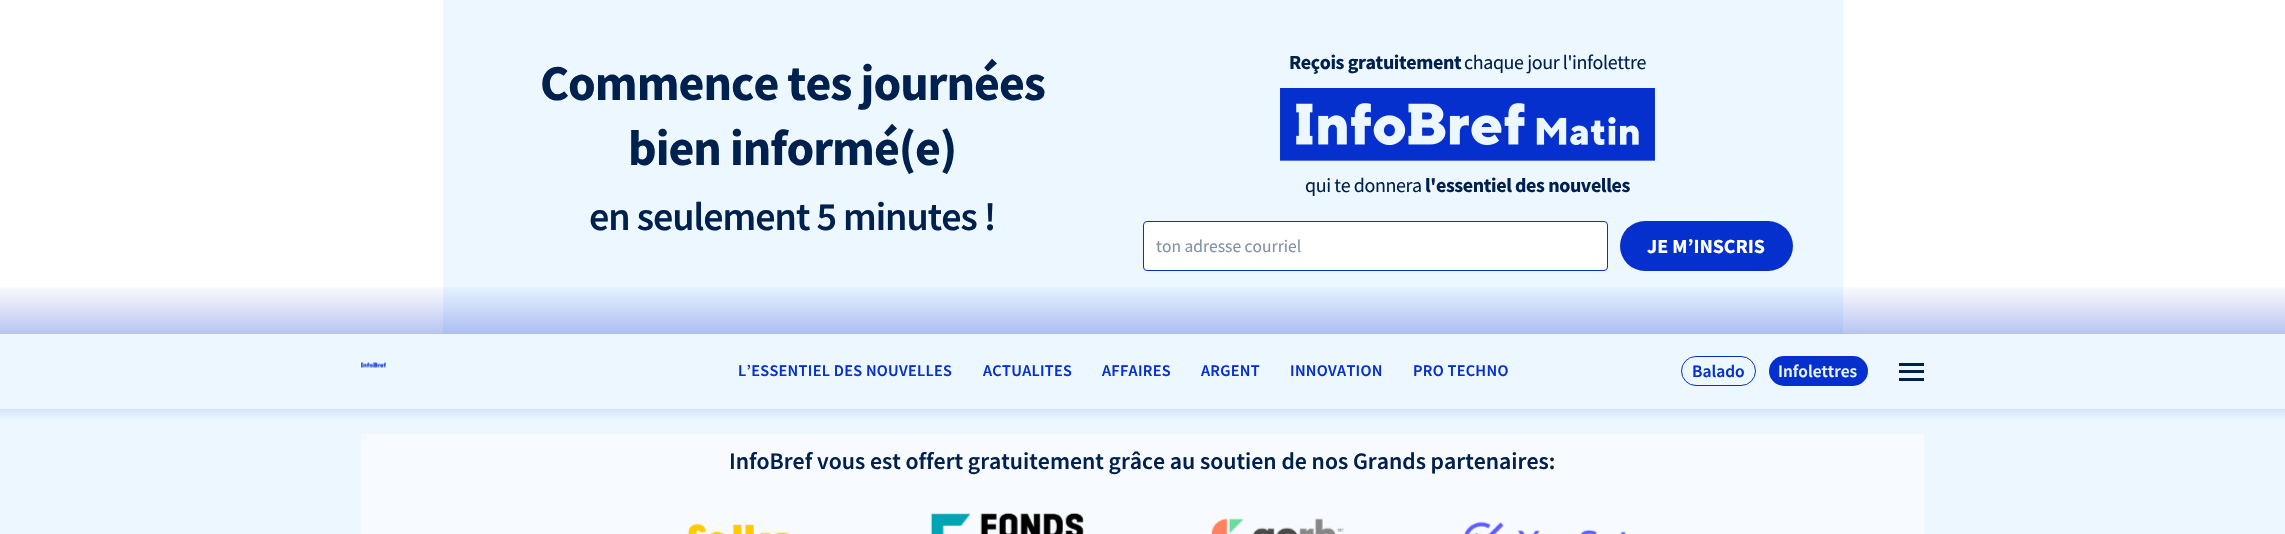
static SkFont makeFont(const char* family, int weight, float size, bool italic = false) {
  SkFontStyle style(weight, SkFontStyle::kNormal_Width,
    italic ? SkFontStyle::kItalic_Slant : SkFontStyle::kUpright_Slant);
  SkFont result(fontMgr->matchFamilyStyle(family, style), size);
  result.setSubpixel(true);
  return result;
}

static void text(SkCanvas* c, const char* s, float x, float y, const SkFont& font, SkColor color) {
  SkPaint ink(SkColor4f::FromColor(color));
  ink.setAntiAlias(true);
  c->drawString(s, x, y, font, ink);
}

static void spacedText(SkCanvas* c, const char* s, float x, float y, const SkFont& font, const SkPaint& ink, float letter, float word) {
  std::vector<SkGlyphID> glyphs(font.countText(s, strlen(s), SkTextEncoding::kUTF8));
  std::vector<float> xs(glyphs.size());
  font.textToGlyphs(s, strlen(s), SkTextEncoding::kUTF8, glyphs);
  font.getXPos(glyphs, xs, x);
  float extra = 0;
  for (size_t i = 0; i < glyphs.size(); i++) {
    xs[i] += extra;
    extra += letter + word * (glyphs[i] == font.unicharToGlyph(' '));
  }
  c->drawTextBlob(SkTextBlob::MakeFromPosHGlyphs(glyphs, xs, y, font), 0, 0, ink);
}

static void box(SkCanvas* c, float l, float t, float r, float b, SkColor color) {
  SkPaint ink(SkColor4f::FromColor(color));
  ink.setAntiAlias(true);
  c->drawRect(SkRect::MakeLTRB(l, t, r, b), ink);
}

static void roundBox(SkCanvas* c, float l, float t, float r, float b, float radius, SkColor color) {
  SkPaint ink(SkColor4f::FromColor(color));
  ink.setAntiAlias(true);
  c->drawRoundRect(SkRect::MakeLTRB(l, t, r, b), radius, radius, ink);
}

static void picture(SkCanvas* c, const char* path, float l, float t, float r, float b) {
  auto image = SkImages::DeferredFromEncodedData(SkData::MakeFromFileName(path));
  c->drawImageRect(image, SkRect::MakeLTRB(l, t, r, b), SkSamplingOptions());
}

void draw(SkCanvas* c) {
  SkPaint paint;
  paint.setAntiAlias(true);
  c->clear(0xffecf7ff);
  box(c, 0, 0, 2285, 334, 0xffffffff);
  box(c, 443, 0, 1843, 334, 0xffecf7ff);
  SkFont face1 = makeFont("Source Sans Pro", 700, 50);
  paint.setColor(0xff00214e);
  spacedText(c, "Commence tes journées", 540, 100, face1, paint, -1, 0);
  spacedText(c, "bien informé(e)", 628, 165, face1, paint, -1, 0);
  SkFont face2 = makeFont("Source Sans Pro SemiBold", 600, 40);
  spacedText(c, "en seulement 5 minutes !", 589, 230, face2, paint, -1, 0);
  SkFont face3 = makeFont("Source Sans Pro", 700, 20);
  spacedText(c, "Reçois gratuitement", 1289, 69, face3, paint, -0.4f, 0);
  SkFont face4 = makeFont("Source Sans Pro", 400, 20);
  spacedText(c, "chaque jour l'infolettre", 1464, 69, face4, paint, -0.4f, 0);
  picture(c, "img_01.png", 1280, 88, 1655, 161);
  spacedText(c, "qui te donnera", 1305, 192, face4, paint, -0.4f, 0);
  spacedText(c, "l'essentiel des nouvelles", 1425, 192, face3, paint, -0.4f, 0);
  paint.setColor(0xffffffff);
  c->drawRoundRect(SkRect::MakeLTRB(1143.5f, 221.5f, 1607.5f, 270.5f), 3.5f, 3.5f, paint);
  paint.setStyle(SkPaint::kStroke_Style);
  paint.setStrokeWidth(1);
  paint.setColor(0xff0530ce);
  c->drawRoundRect(SkRect::MakeLTRB(1143.5f, 221.5f, 1607.5f, 270.5f), 3.5f, 3.5f, paint);
  SkFont face5 = makeFont("Source Sans Pro", 400, 17.5f);
  text(c, "ton adresse courriel", 1156, 252, face5, 0xff8090a7);
  roundBox(c, 1620, 221, 1793, 271, 25, 0xff0530ce);
  text(c, "JE M’INSCRIS", 1647, 253, face3, 0xffffffff);
  paint.setStyle(SkPaint::kFill_Style);
  {
    const SkColor colors[] = {0x470530ce, 0x000530ce};
    const float stops[] = {0, 1};
    const SkPoint ends[] = {{1143, 333}, {1143, 283}};
    paint.setShader(SkGradientShader::MakeLinear(ends, colors, stops, 2, SkTileMode::kClamp));
    paint.setAlpha(255);
  }
  c->drawRect(SkRect::MakeLTRB(0, 287, 2285, 334), paint);
  picture(c, "img_02.png", 361, 362, 386, 368);
  SkFont face6 = makeFont("Source Sans Pro SemiBold", 600, 16.25f);
  paint.setShader(nullptr);
  paint.setColor(0xff0530ce);
  spacedText(c, "L’ESSENTIEL DES NOUVELLES", 738, 376, face6, paint, 0.3f, 0);
  spacedText(c, "ACTUALITES", 983, 376, face6, paint, 0.3f, 0);
  spacedText(c, "AFFAIRES", 1102, 376, face6, paint, 0.3f, 0);
  spacedText(c, "ARGENT", 1201, 376, face6, paint, 0.3f, 0);
  spacedText(c, "INNOVATION", 1290, 376, face6, paint, 0.3f, 0);
  spacedText(c, "PRO TECHNO", 1413, 376, face6, paint, 0.3f, 0);
  paint.setStyle(SkPaint::kStroke_Style);
  c->drawRoundRect(SkRect::MakeLTRB(1681.5f, 356.5f, 1755.5f, 385.5f), 14.5f, 14.5f, paint);
  SkFont face7 = makeFont("Source Sans Pro SemiBold", 600, 17.5f);
  text(c, "Balado", 1692, 377, face7, 0xff0530ce);
  roundBox(c, 1769, 356, 1868, 386, 15, 0xff0530ce);
  text(c, "Infolettres", 1778, 377, face7, 0xffecf7ff);
  box(c, 1899, 363, 1924, 366, 0xff00214e);
  box(c, 1899, 370, 1924, 373, 0xff00214e);
  box(c, 1899, 378, 1924, 381, 0xff00214e);
  paint.setStyle(SkPaint::kFill_Style);
  {
    const SkColor colors[] = {0xffd5e3fa, 0xffecf7ff};
    const float stops[] = {0, 1};
    const SkPoint ends[] = {{1143, 409}, {1143, 421}};
    paint.setShader(SkGradientShader::MakeLinear(ends, colors, stops, 2, SkTileMode::kClamp));
    paint.setAlpha(255);
  }
  c->drawRect(SkRect::MakeLTRB(0, 409, 2285, 420), paint);
  box(c, 361, 434, 1924, 534, 0xfff7fafe);
  SkFont face8 = makeFont("Source Sans Pro SemiBold", 600, 23.75f);
  text(c, "InfoBref vous est offert gratuitement grâce au soutien de nos Grands partenaires:", 729, 469, face8, 0xff00214e);
  picture(c, "img_03.png", 687, 523, 790, 534);
  picture(c, "img_04.png", 930, 512, 1084, 534);
  picture(c, "img_05.png", 1211, 518, 1344, 534);
  picture(c, "img_06.png", 1464, 521, 1626, 534);
}
